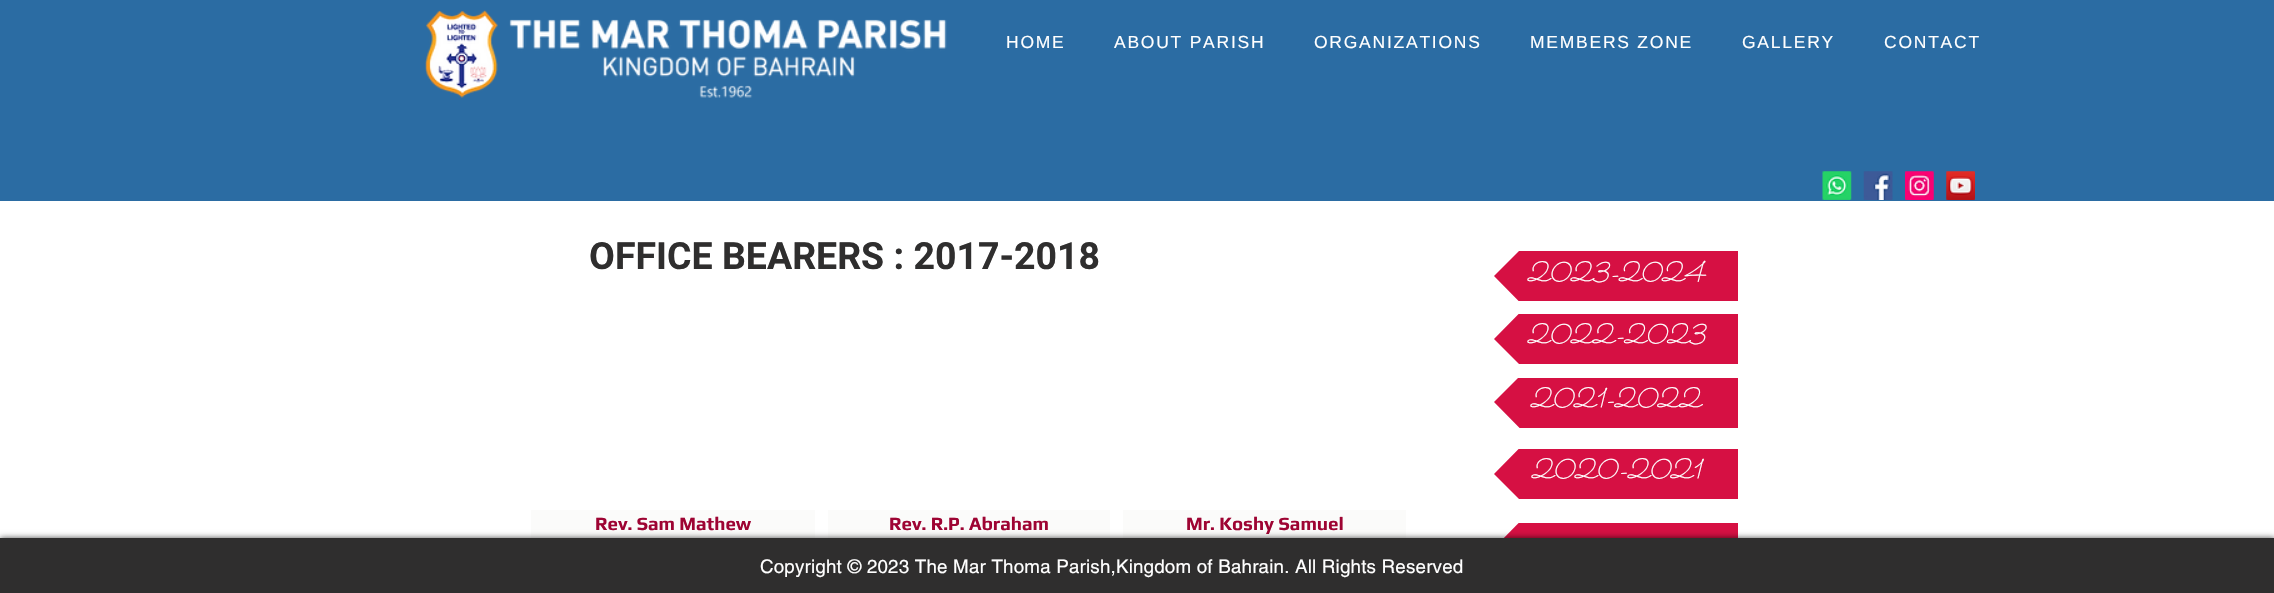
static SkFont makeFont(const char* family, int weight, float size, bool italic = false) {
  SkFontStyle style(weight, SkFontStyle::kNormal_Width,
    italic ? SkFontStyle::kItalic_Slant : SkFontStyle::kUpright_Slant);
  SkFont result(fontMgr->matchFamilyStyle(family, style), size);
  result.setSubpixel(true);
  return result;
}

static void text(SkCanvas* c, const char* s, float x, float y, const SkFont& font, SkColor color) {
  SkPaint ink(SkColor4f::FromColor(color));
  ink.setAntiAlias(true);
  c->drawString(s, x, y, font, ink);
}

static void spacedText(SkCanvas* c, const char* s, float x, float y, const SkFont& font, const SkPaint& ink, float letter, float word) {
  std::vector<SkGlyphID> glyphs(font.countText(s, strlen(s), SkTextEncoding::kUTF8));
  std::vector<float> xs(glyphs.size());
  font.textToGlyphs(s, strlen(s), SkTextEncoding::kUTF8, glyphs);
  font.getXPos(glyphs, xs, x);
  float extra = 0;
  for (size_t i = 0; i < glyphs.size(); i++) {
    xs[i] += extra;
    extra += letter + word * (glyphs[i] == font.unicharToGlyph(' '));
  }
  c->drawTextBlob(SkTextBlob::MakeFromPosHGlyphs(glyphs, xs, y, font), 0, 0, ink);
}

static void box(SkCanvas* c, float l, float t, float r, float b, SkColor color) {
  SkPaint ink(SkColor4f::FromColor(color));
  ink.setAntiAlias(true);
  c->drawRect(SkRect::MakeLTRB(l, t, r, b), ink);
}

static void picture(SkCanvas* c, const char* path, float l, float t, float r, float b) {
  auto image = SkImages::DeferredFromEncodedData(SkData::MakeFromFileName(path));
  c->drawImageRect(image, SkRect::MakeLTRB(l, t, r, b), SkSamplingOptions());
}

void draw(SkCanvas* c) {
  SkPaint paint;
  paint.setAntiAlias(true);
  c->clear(0xffffffff);
  box(c, 0, 0, 2274, 201, 0xff2b6ca3);
  picture(c, "img_01.png", 425, 10, 947, 98);
  SkFont face1 = makeFont("Liberation Sans", 400, 17.5f);
  paint.setColor(0xffffffff);
  spacedText(c, "HOME", 1006, 48, face1, paint, 1.75f, 0);
  spacedText(c, "ABOUT PARISH", 1114, 48, face1, paint, 1.75f, 0);
  spacedText(c, "ORGANIZATIONS", 1314, 48, face1, paint, 1.75f, 0);
  spacedText(c, "MEMBERS ZONE", 1530, 48, face1, paint, 1.75f, 0);
  spacedText(c, "GALLERY", 1742, 48, face1, paint, 1.75f, 0);
  spacedText(c, "CONTACT", 1884, 48, face1, paint, 1.75f, 0);
  picture(c, "img_02.png", 1822, 171, 1852, 200);
  picture(c, "img_03.png", 1863, 171, 1893, 200);
  picture(c, "img_04.png", 1905, 171, 1934, 200);
  picture(c, "img_05.png", 1946, 171, 1975, 200);
  SkFont face2 = makeFont("Roboto", 700, 37.5f);
  text(c, "OFFICE BEARERS : 2017-2018", 589, 269, face2, 0xff2f2e2e);
  c->save();
  c->clipRect(SkRect::MakeLTRB(1494, 251, 1738, 301));
  paint.setColor(0xffd61043);
  c->drawPath(SkPathBuilder().moveTo(1556, 276).lineTo(1494, 276).lineTo(1556, 214).close().moveTo(1494, 276).lineTo(1556, 276).lineTo(1556, 339).close().detach(), paint);
  c->restore();
  box(c, 1556, 251, 1738, 301, 0xffd61043);
  SkFont face3 = makeFont("Sacramento", 400, 27.5f, true);
  text(c, "2023-2024", 1527, 281, face3, 0xffffffff);
  c->save();
  c->clipRect(SkRect::MakeLTRB(1494, 314, 1738, 364));
  c->drawPath(SkPathBuilder().moveTo(1556, 339).lineTo(1494, 339).lineTo(1556, 276).close().moveTo(1494, 339).lineTo(1556, 339).lineTo(1556, 401).close().detach(), paint);
  c->restore();
  box(c, 1556, 314, 1738, 364, 0xffd61043);
  text(c, "2022-2023", 1527, 343, face3, 0xffffffff);
  c->save();
  c->clipRect(SkRect::MakeLTRB(1494, 378, 1738, 428));
  c->drawPath(SkPathBuilder().moveTo(1556, 402).lineTo(1494, 402).lineTo(1556, 340).close().moveTo(1494, 402).lineTo(1556, 402).lineTo(1556, 465).close().detach(), paint);
  c->restore();
  box(c, 1556, 378, 1738, 428, 0xffd61043);
  text(c, "2021-2022", 1530, 407, face3, 0xffffffff);
  c->save();
  c->clipRect(SkRect::MakeLTRB(1494, 449, 1738, 499));
  c->drawPath(SkPathBuilder().moveTo(1556, 474).lineTo(1494, 474).lineTo(1556, 411).close().moveTo(1494, 474).lineTo(1556, 474).lineTo(1556, 536).close().detach(), paint);
  c->restore();
  box(c, 1556, 449, 1738, 499, 0xffd61043);
  text(c, "2020-2021", 1531, 478, face3, 0xffffffff);
  c->save();
  c->clipRect(SkRect::MakeLTRB(1494, 523, 1738, 573));
  c->drawPath(SkPathBuilder().moveTo(1556, 548).lineTo(1494, 548).lineTo(1556, 485).close().detach(), paint);
  c->restore();
  box(c, 1556, 523, 1738, 538, 0xffd61043);
  box(c, 531, 510, 815, 538, 0xfffbfbfa);
  SkFont face4 = makeFont("Play", 700, 18.75f);
  text(c, "Rev. Sam Mathew", 595, 530, face4, 0xff9e0433);
  box(c, 828, 510, 1110, 538, 0xfffbfbfa);
  text(c, "Rev. R.P. Abraham", 889, 530, face4, 0xff9e0433);
  box(c, 1123, 510, 1406, 538, 0xfffbfbfa);
  text(c, "Mr. Koshy Samuel", 1186, 530, face4, 0xff9e0433);
  paint.setColor(0xb3000000);
  paint.setMaskFilter(SkMaskFilter::MakeBlur(kNormal_SkBlurStyle, 3));
  c->drawRect(SkRect::MakeLTRB(0, 538, 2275, 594), paint);
  paint.setMaskFilter(nullptr);
  box(c, 0, 538, 2274, 593, 0xff2f2e2e);
  SkFont face5 = makeFont("helvetica", 400, 18.75f);
  paint.setColor(0xffffffff);
  spacedText(c, "Copyright © 2023 The Mar Thoma Parish,Kingdom of Bahrain. All Rights Reserved", 760, 573, face5, paint, 0.2f, 0);
}
